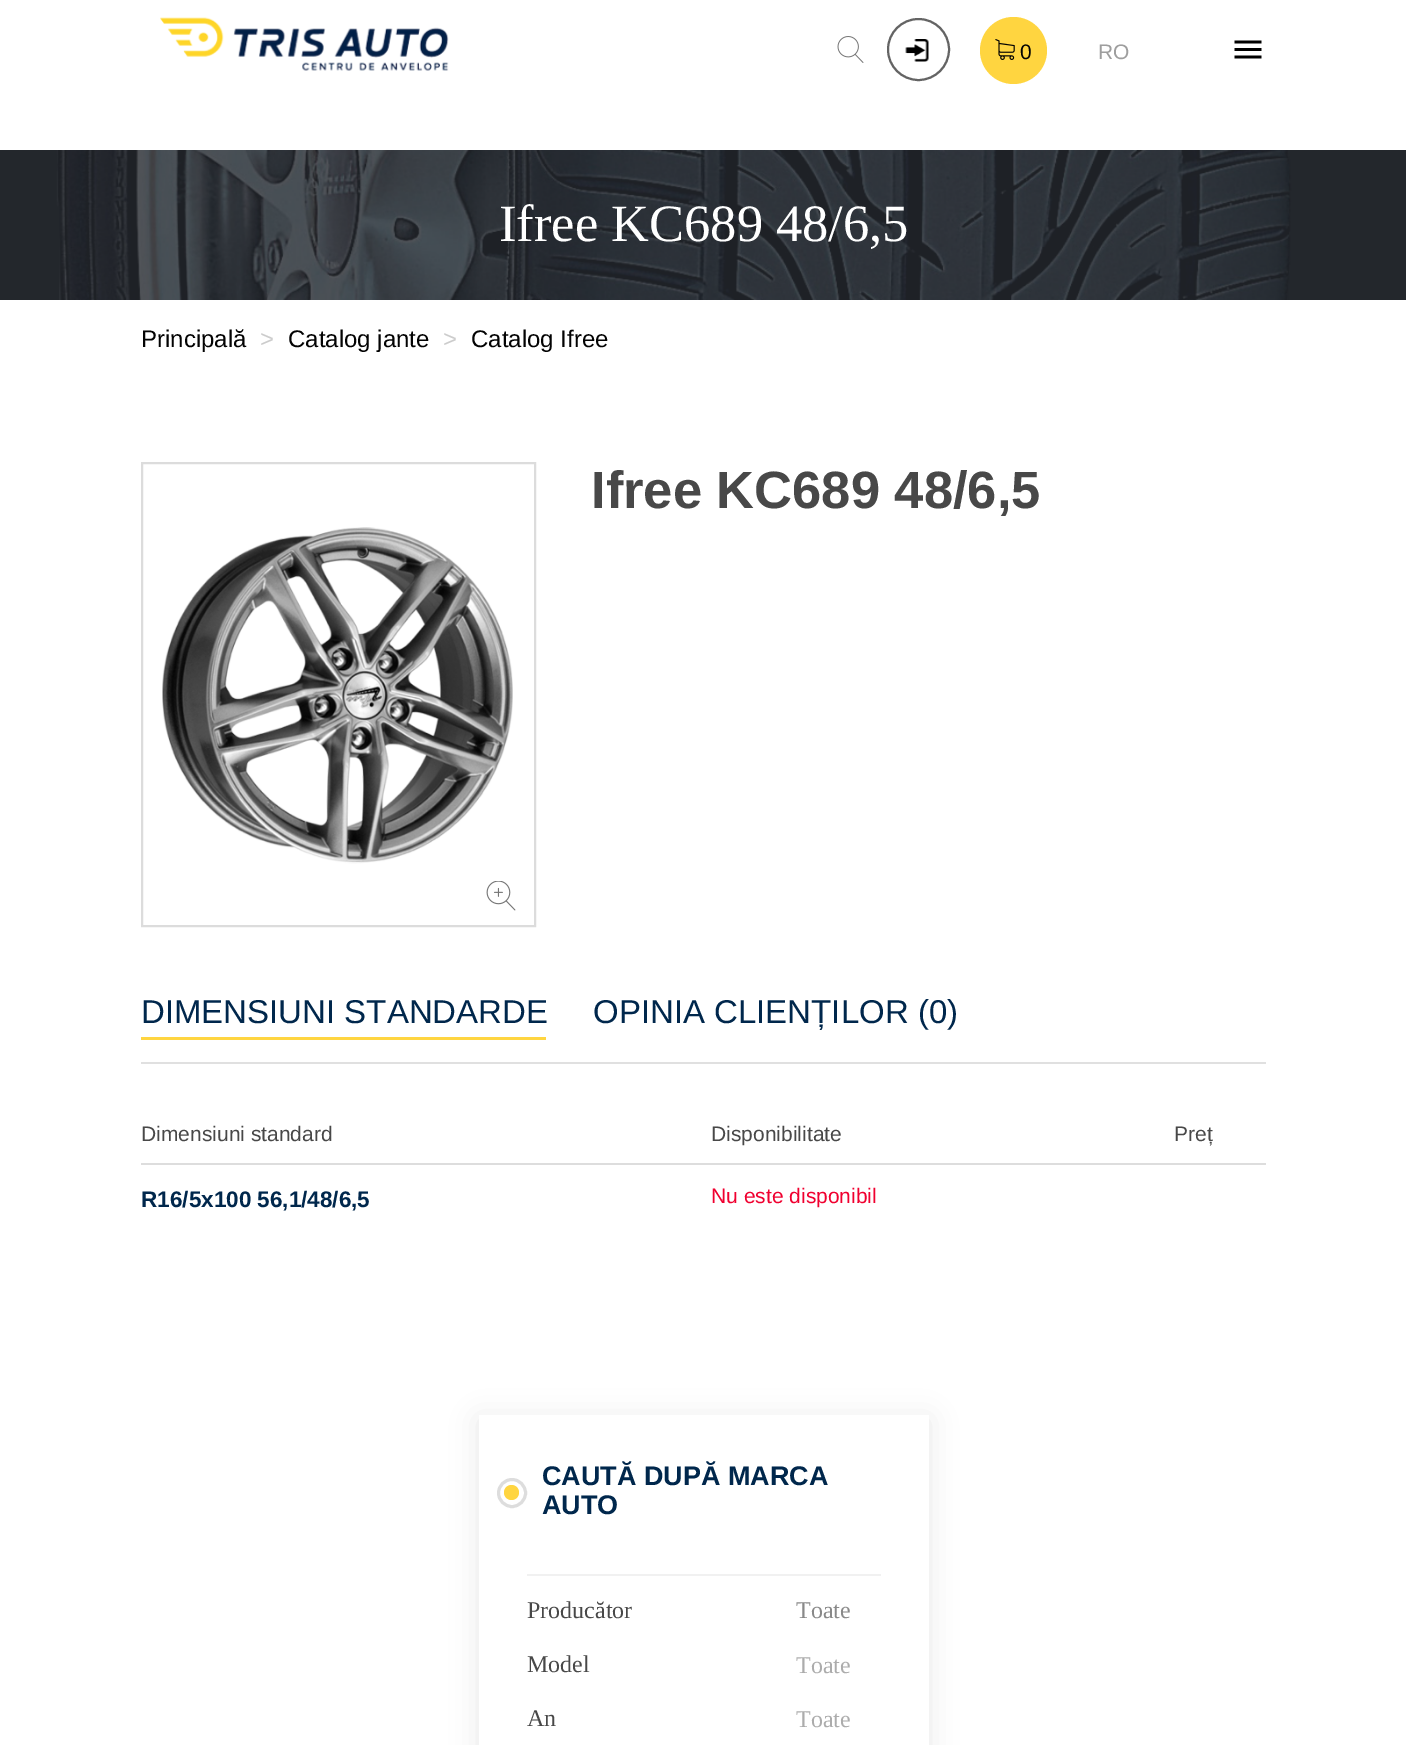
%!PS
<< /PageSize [1406 1745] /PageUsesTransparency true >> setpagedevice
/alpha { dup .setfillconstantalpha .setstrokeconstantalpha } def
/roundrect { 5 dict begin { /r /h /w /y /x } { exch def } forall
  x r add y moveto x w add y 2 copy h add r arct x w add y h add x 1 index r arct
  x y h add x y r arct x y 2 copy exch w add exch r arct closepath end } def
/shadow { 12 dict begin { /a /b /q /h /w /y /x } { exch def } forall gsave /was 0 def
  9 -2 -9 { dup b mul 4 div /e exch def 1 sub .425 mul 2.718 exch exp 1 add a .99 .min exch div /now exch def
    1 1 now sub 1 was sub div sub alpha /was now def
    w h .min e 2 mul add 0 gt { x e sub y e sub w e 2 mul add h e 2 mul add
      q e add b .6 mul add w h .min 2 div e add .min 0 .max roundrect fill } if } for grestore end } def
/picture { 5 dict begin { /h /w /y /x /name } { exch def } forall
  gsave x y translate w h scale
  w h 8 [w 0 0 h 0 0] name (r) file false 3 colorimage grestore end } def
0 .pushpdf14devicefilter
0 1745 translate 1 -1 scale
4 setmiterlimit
1 setgray
0 0 1406 1745 rectfill
(img1.rgb) 160 17 289 54 picture
(img2.rgb) 837 36 27 27 picture
(img3.rgb) 905 39 24 23 picture
0.392 setgray
2 setlinewidth
newpath 918.5 49.5 30.5 0 360 arc closepath stroke
1 0.835 0.251 setrgbcolor
newpath 1013.5 50.5 33.5 0 360 arc closepath fill
(img4.rgb) 995 39 20 21 picture
/LiberationSans-Regular [21 0 0 -21 0 0] selectfont
0.012 setgray
1020 59 moveto (0) show
0.62 setgray
1098 59 moveto (RO) show
(img5.rgb) 1234 40 28 19 picture
(img6.rgb) 0 150 1406 150 picture
/LiberationSerif-Regular [52.5 0 0 -52.5 0 0] selectfont
1 setgray
499 241 moveto (Ifree KC689 48/6,5) show
/LiberationSans-Regular [24 0 0 -24 0 0] selectfont
0.012 setgray
141 347 moveto (Principală) show
0.8 setgray
260 347 moveto (>) show
0.012 setgray
288 347 moveto (Catalog jante) show
0.8 setgray
443 347 moveto (>) show
0.012 setgray
471 347 moveto (Catalog Ifree) show
0.863 setgray
142 463 393 463 rectstroke
(img7.rgb) 162 527 351 337 picture
(img8.rgb) 486 881 30 30 picture
/LiberationSans-Bold [52.5 0 0 -52.5 0 0] selectfont
0.282 setgray
591 508 moveto (Ifree KC689 48/6,5) show
0.878 setgray
141 1062 1125 2 rectfill
/LiberationSans-Regular [33 0 0 -33 0 0] selectfont
0 0.153 0.298 setrgbcolor
141 1023 moveto (DIMENSIUNI STANDARDE) show
593 1023 moveto (OPINIA CLIENȚILOR \(0\)) show
1 0.835 0.251 setrgbcolor
141 1037 405 3 rectfill
/LiberationSans-Regular [21 0 0 -21 0 0] selectfont
0.282 setgray
141 1141 moveto (Dimensiuni standard) show
711 1141 moveto (Disponibilitate) show
1174 1141 moveto (Preț) show
0.867 setgray
141 1163 1125 2 rectfill
/LiberationSans-Bold [22.5 0 0 -22.5 0 0] selectfont
0 0.153 0.298 setrgbcolor
141 1207 moveto (R16/5x100 56,1/48/6,5) show
/LiberationSans-Regular [21 0 0 -21 0 0] selectfont
0.941 0 0.184 setrgbcolor
711 1203 moveto (Nu este disponibil) show
gsave
newpath 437 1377 moveto 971 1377 lineto 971 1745 lineto 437 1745 lineto closepath 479 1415 moveto 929 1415 lineto 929 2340 lineto 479 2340 lineto closepath eoclip newpath
0.031 0.031 0.035 setrgbcolor
479 1419 450 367 0 13.5 0.09 shadow
grestore
0.867 setgray
3 setlinewidth
newpath 512 1493 13.5 0 360 arc closepath stroke
1 0.835 0.251 setrgbcolor
newpath 511.5 1492.5 7.5 0 360 arc closepath fill
/LiberationSans-Bold [27 0 0 -27 0 0] selectfont
0 0.153 0.298 setrgbcolor
542 1485 moveto (CAUTĂ DUPĂ MARCA) show
542 1514 moveto (AUTO) show
0.945 setgray
527 1574 354 2 rectfill
/LiberationSerif-Regular [24 0 0 -24 0 0] selectfont
0.282 setgray
527 1618 moveto (Producător) show
0.537 setgray
796 1618 moveto (Toate) show
0.282 setgray
527 1672 moveto (Model) show
0.675 setgray
796 1673 moveto (Toate) show
0.282 setgray
527 1726 moveto (An) show
0.675 setgray
796 1727 moveto (Toate) show
.poppdf14devicefilter showpage
